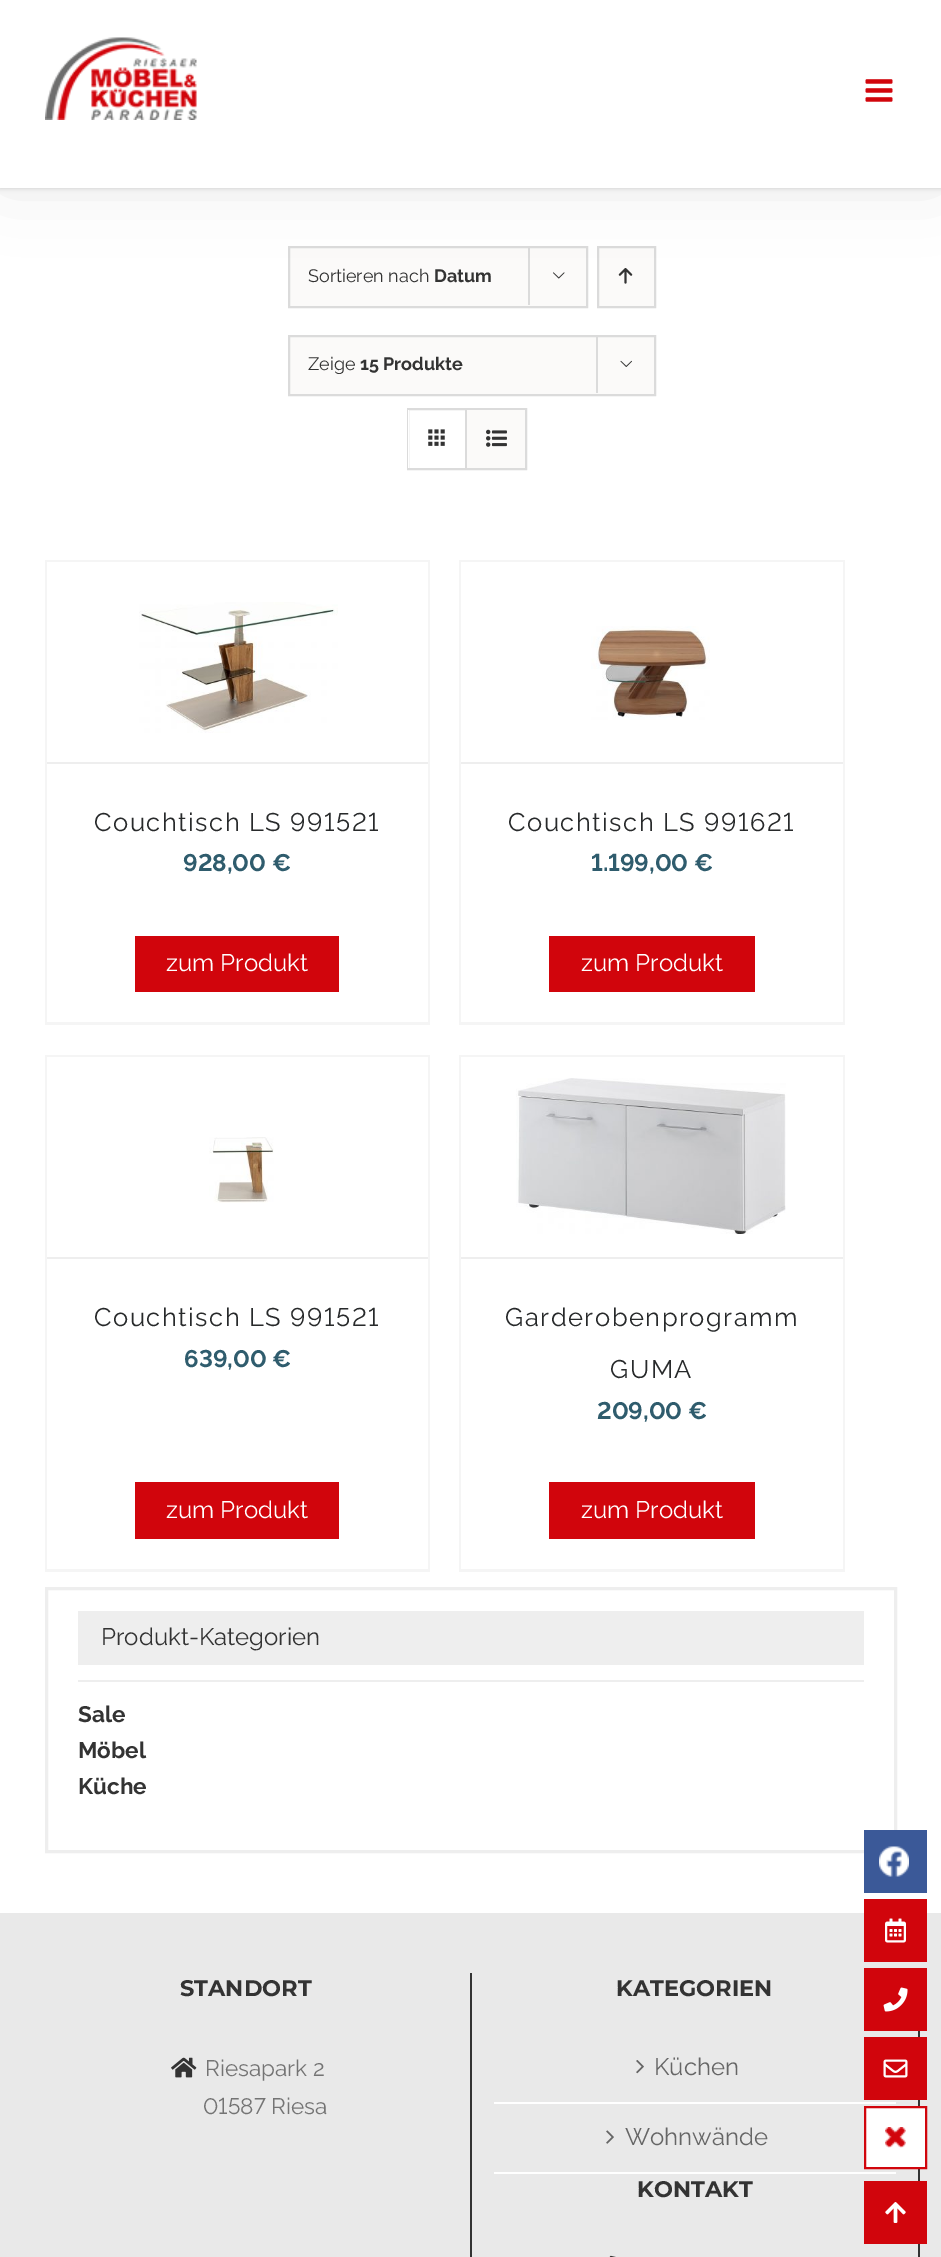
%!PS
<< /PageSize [941 2257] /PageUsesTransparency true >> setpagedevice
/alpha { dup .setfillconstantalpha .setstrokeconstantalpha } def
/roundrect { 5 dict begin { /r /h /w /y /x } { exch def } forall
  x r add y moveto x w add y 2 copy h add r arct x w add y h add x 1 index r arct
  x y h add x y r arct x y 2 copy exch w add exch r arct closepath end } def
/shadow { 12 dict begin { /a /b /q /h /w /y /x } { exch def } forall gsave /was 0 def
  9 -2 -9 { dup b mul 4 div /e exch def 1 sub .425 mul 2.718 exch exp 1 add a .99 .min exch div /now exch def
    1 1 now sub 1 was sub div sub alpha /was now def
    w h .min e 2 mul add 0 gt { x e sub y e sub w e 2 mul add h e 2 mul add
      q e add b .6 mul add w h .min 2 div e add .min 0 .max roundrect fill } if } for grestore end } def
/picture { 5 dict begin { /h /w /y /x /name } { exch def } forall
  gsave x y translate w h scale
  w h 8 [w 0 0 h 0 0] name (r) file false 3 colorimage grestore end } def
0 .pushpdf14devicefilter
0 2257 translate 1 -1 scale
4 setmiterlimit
1 setgray
0 0 941 2257 rectfill
0.984 0.98 0.976 setrgbcolor
newpath 289 247 moveto 587 247 lineto 587 307 lineto 289 307 lineto closepath gsave fill grestore
0.859 setgray
2 setlinewidth
stroke
528 246 2 59 rectfill
(img3.rgb) 553 272 12 7 picture
0.984 0.98 0.976 setrgbcolor
newpath 598 247 moveto 655 247 lineto 655 307 lineto 598 307 lineto closepath gsave fill grestore
0.859 setgray
stroke
(img4.rgb) 618 268 15 16 picture
0 setgray
3 -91 936 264 0 37.5 0.14 shadow
0 2 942 187 0 2 0.12 shadow
1 setgray
0 0 941 188 rectfill
(img1.rgb) 45 37 152 83 picture
(img2.rgb) 865 79 28 23 picture
/Raleway-Regular [18 0 0 -18 0 0] selectfont
0.2 setgray
308 282 moveto (Sortieren nach) show
/Raleway-Bold [18 0 0 -18 0 0] selectfont
434 282 moveto (Datum) show
0.984 0.98 0.976 setrgbcolor
newpath 289 336 moveto 655 336 lineto 655 395 lineto 289 395 lineto closepath gsave fill grestore
0.859 setgray
stroke
/Raleway-Regular [18 0 0 -18 0 0] selectfont
0.2 setgray
308 370 moveto (Zeige) show
/Raleway-Bold [18 0 0 -18 0 0] selectfont
360 370 moveto (15 Produkte) show
0.859 setgray
596 335 2 58 rectfill
(img5.rgb) 620 360 12 7 picture
408 409 118 60 rectstroke
1 setgray
408 410 1 58 rectfill
0.859 setgray
465 410 2 58 rectfill
(img6.rgb) 428 429 17 17 picture
0.984 0.98 0.976 setrgbcolor
467 410 58 58 rectfill
(img7.rgb) 486 429 21 18 picture
0.961 setgray
45 560 384 2 rectfill
428 560 2 465 rectfill
45 1022 384 3 rectfill
45 560 2 465 rectfill
(img8.rgb) 139 602 199 131 picture
0.933 setgray
47 762 381 2 rectfill
/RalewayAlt-Regular [25.5 0 0 -25.5 0 0] selectfont
0.157 0.165 0.169 setrgbcolor
94 831 moveto 1.5 0 (Couchtisch LS 991521) ashow
/RalewayAlt-Bold [24 0 0 -24 0 0] selectfont
0.184 0.361 0.427 setrgbcolor
183 871 moveto (928,00) show
/Raleway-Bold [24 0 0 -24 0 0] selectfont
272 871 moveto (€) show
0.82 0.02 0.047 setrgbcolor
135 936 204 56 rectfill
/Raleway-Regular [24 0 0 -24 0 0] selectfont
1 setgray
166 971 moveto (zum Produkt) show
0.961 setgray
459 560 386 2 rectfill
843 560 2 465 rectfill
459 1022 386 3 rectfill
459 560 2 465 rectfill
(img9.rgb) 591 626 119 94 picture
0.933 setgray
461 762 382 2 rectfill
/RalewayAlt-Regular [25.5 0 0 -25.5 0 0] selectfont
0.157 0.165 0.169 setrgbcolor
508 831 moveto 1.5 0 (Couchtisch LS 991621) ashow
/RalewayAlt-Bold [24 0 0 -24 0 0] selectfont
0.184 0.361 0.427 setrgbcolor
591 871 moveto (1.199,00) show
/Raleway-Bold [24 0 0 -24 0 0] selectfont
694 871 moveto (€) show
0.82 0.02 0.047 setrgbcolor
549 936 206 56 rectfill
/Raleway-Regular [24 0 0 -24 0 0] selectfont
1 setgray
581 971 moveto (zum Produkt) show
0.961 setgray
45 1055 384 2 rectfill
428 1055 2 517 rectfill
45 1569 384 3 rectfill
45 1055 2 517 rectfill
(img10.rgb) 209 1137 65 66 picture
0.933 setgray
47 1257 381 2 rectfill
/RalewayAlt-Regular [25.5 0 0 -25.5 0 0] selectfont
0.157 0.165 0.169 setrgbcolor
94 1326 moveto 1.5 0 (Couchtisch LS 991521) ashow
/RalewayAlt-Bold [24 0 0 -24 0 0] selectfont
0.184 0.361 0.427 setrgbcolor
184 1367 moveto (639,00) show
/Raleway-Bold [24 0 0 -24 0 0] selectfont
272 1367 moveto (€) show
0.82 0.02 0.047 setrgbcolor
135 1482 204 57 rectfill
/Raleway-Regular [24 0 0 -24 0 0] selectfont
1 setgray
166 1518 moveto (zum Produkt) show
0.961 setgray
459 1055 386 2 rectfill
843 1055 2 517 rectfill
459 1569 386 3 rectfill
459 1055 2 517 rectfill
(img11.rgb) 516 1078 270 156 picture
0.933 setgray
461 1257 382 2 rectfill
/Raleway-Regular [25.5 0 0 -25.5 0 0] selectfont
0.157 0.165 0.169 setrgbcolor
505 1326 moveto 1.5 0 (Garderobenprogramm) ashow
610 1378 moveto 1.5 0 (GUMA) ashow
/RalewayAlt-Bold [24 0 0 -24 0 0] selectfont
0.184 0.361 0.427 setrgbcolor
597 1419 moveto (209,00) show
/Raleway-Bold [24 0 0 -24 0 0] selectfont
688 1419 moveto (€) show
0.82 0.02 0.047 setrgbcolor
549 1482 206 57 rectfill
/Raleway-Regular [24 0 0 -24 0 0] selectfont
1 setgray
581 1518 moveto (zum Produkt) show
0.933 setgray
3 setlinewidth
46.5 1588.5 849 263 rectstroke
78 1680 786 2 rectfill
78 1611 786 54 rectfill
0.2 setgray
101 1645 moveto (Produkt-Kategorien) show
/Raleway-Bold [22.5 0 0 -22.5 0 0] selectfont
78 1722 moveto (Sale) show
78 1758 moveto (Möbel) show
78 1794 moveto (Küche) show
0.914 setgray
0 1913 941 344 rectfill
0.2 setgray
470 1973 2 284 rectfill
/Montserrat-Bold [22.5 0 0 -22.5 0 0] selectfont
180 1996 moveto (STANDORT) show
(img12.rgb) 171 2057 26 21 picture
/Raleway-Regular [22.5 0 0 -22.5 0 0] selectfont
0.455 setgray
205 2076 moveto (Riesapark 2) show
/RalewayAlt-Regular [22.5 0 0 -22.5 0 0] selectfont
203 2114 moveto (01587 Riesa) show
0.2 setgray
918 2031 2 226 rectfill
/Montserrat-Bold [22.5 0 0 -22.5 0 0] selectfont
616 1996 moveto (KATEGORIEN) show
1 setgray
494 2102 402 2 rectfill
(img13.rgb) 636 2060 8 14 picture
/Raleway-Regular [24 0 0 -24 0 0] selectfont
0.4 setgray
654 2075 moveto (Küchen) show
1 setgray
494 2172 402 2 rectfill
(img14.rgb) 606 2130 8 14 picture
0.4 setgray
625 2145 moveto (Wohnwände) show
/Montserrat-Bold [22.5 0 0 -22.5 0 0] selectfont
0.2 setgray
637 2197 moveto (KONTAKT) show
(img15.rgb) 609 2255 7 2 picture
0.231 0.349 0.596 setrgbcolor
864 1830 63 63 rectfill
(img16.rgb) 879 1846 30 31 picture
0.82 0.02 0.047 setrgbcolor
864 1899 63 63 rectfill
(img17.rgb) 885 1918 21 25 picture
864 1968 63 63 rectfill
(img18.rgb) 883 1987 25 25 picture
864 2037 63 63 rectfill
(img19.rgb) 883 2059 25 19 picture
1 setgray
866 2108 59 59 rectfill
(img20.rgb) 885 2127 21 21 picture
0.82 0.02 0.047 setrgbcolor
2 setlinewidth
865 2107 61 61 rectstroke
864 2181 63 63 rectfill
(img21.rgb) 885 2202 21 21 picture
.poppdf14devicefilter showpage
